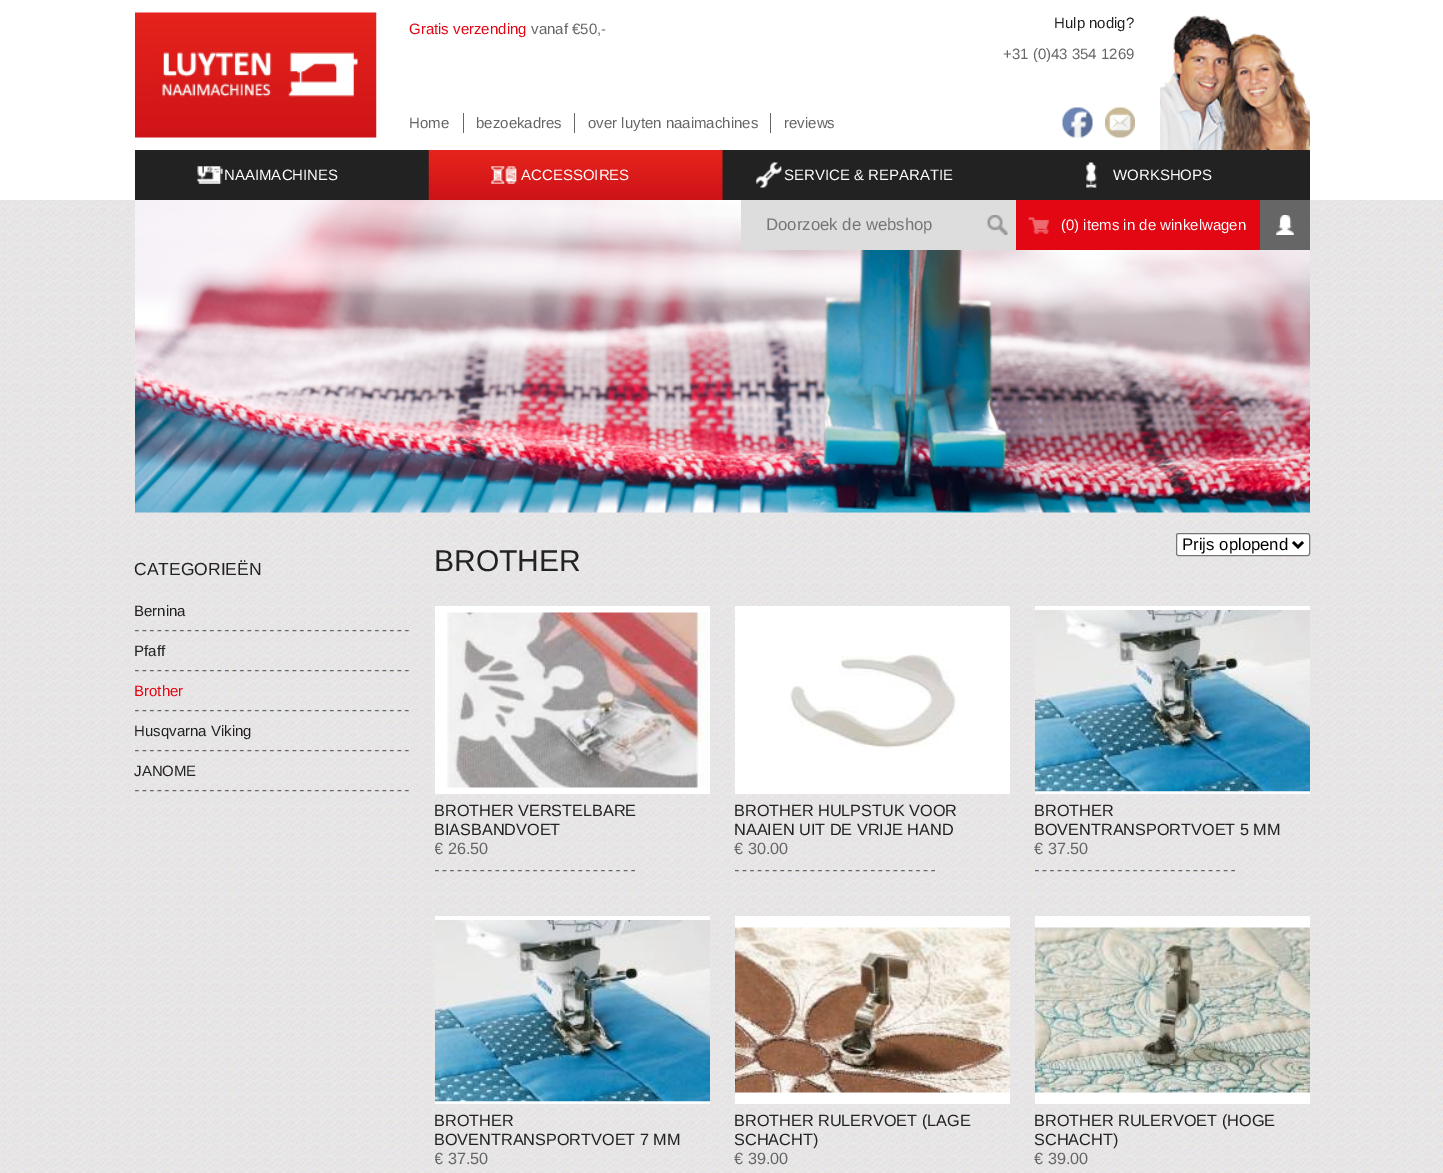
%!PS
<< /PageSize [1443 1173] >> setpagedevice
/roundrect { 5 dict begin { /r /h /w /y /x } { exch def } forall
  x r add y moveto x w add y 2 copy h add r arct x w add y h add x 1 index r arct
  x y h add x y r arct x y 2 copy exch w add exch r arct closepath end } def
/picture { 5 dict begin { /h /w /y /x /name } { exch def } forall
  gsave x y translate w h scale
  w h 8 [w 0 0 h 0 0] name (r) file false 3 colorimage grestore end } def
0 1173 translate 1 -1 scale
4 setmiterlimit
1 setgray
0 0 1443 1173 rectfill
(img1.rgb) 135 12 242 126 picture
/LiberationSans-Regular [15 0 0 -15 0 0] selectfont
0.89 0.024 0.075 setrgbcolor
409 34 moveto (Gratis verzending) show
0.4 setgray
531 34 moveto (vanaf €50,-) show
463 113 1 20 rectfill
409 128 moveto (Home) show
574 113 1 20 rectfill
476 128 moveto (bezoekadres) show
770 113 1 20 rectfill
588 128 moveto (over luyten naaimachines) show
784 128 moveto (reviews) show
0.133 setgray
1054 28 moveto (Hulp nodig?) show
0.4 setgray
1003 59 moveto (+31 \(0\)43 354 1269) show
(img2.rgb) 1062 107 31 31 picture
(img3.rgb) 1105 107 30 31 picture
(img4.rgb) 1160 15 150 135 picture
0.133 setgray
135 150 1175 50 rectfill
(img5.rgb) 197 166 26 18 picture
1 setgray
224 180 moveto (NAAIMACHINES) show
(img6.rgb) 428 150 295 50 picture
(img7.rgb) 491 166 26 18 picture
521 180 moveto (ACCESSOIRES) show
(img8.rgb) 756 162 26 26 picture
784 180 moveto (SERVICE & REPARATIE) show
(img9.rgb) 1086 162 11 26 picture
1113 180 moveto (WORKSHOPS) show
(img10.rgb) 0 200 1443 973 picture
(img11.rgb) 135 200 1175 313 picture
0.867 setgray
741 200 275 50 rectfill
/LiberationSans-Regular [16.75 0 0 -16.75 0 0] selectfont
0.459 setgray
766 230 moveto (Doorzoek de webshop) show
(img12.rgb) 987 215 21 20 picture
0.89 0.024 0.075 setrgbcolor
1016 200 244 50 rectfill
(img13.rgb) 1028 217 21 17 picture
/LiberationSans-Regular [15 0 0 -15 0 0] selectfont
1 setgray
1061 230 moveto (\(0\) items in de winkelwagen) show
0.4 setgray
1260 200 50 50 rectfill
(img14.rgb) 1276 215 18 20 picture
1 setgray
1176.5 533.5 133 22 2 roundrect gsave fill grestore
0.463 setgray
stroke
0 setgray
2.5 setlinewidth
newpath 1293 542 moveto 1298 547 lineto 1303 542 lineto stroke
/LiberationSans-Regular [16.75 0 0 -16.75 0 0] selectfont
1182 550 moveto (Prijs oplopend) show
/LiberationSans-Regular [17.5 0 0 -17.5 0 0] selectfont
0.133 setgray
134 575 moveto (CATEGORIEËN) show
(img15.rgb) 135 630 274 2 picture
/LiberationSans-Regular [15 0 0 -15 0 0] selectfont
134 616 moveto (Bernina) show
(img16.rgb) 135 670 274 2 picture
134 656 moveto (Pfaff) show
(img17.rgb) 135 710 274 2 picture
0.89 0.024 0.075 setrgbcolor
134 696 moveto (Brother) show
(img18.rgb) 135 750 274 2 picture
0.133 setgray
134 736 moveto (Husqvarna Viking) show
(img19.rgb) 135 790 274 2 picture
134 776 moveto (JANOME) show
/LiberationSans-Regular [30 0 0 -30 0 0] selectfont
434 571 moveto (BROTHER) show
1 setgray
435 606 275 188 rectfill
(img20.rgb) 447 612 263 176 picture
/LiberationSans-Regular [16.25 0 0 -16.25 0 0] selectfont
0.133 setgray
434 816 moveto (BROTHER VERSTELBARE) show
434 835 moveto (BIASBANDVOET) show
gsave
435 606 875 310 rectclip
0.4 setgray
434 854 moveto (€ 26.50) show
grestore
(img21.rgb) 435 870 200 2 picture
1 setgray
735 606 275 188 rectfill
(img22.rgb) 789 654 169 94 picture
0.133 setgray
734 816 moveto (BROTHER HULPSTUK VOOR) show
734 835 moveto (NAAIEN UIT DE VRIJE HAND) show
0.4 setgray
734 854 moveto (€ 30.00) show
(img23.rgb) 735 870 200 2 picture
1 setgray
1035 606 275 188 rectfill
(img24.rgb) 1035 610 275 182 picture
0.133 setgray
1034 816 moveto (BROTHER) show
1034 835 moveto (BOVENTRANSPORTVOET 5 MM) show
0.4 setgray
1034 854 moveto (€ 37.50) show
(img25.rgb) 1035 870 200 2 picture
1 setgray
435 916 275 188 rectfill
(img26.rgb) 435 920 275 182 picture
0.133 setgray
434 1126 moveto (BROTHER) show
434 1145 moveto (BOVENTRANSPORTVOET 7 MM) show
gsave
435 916 875 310 rectclip
0.4 setgray
434 1164 moveto (€ 37.50) show
grestore
1 setgray
735 916 275 188 rectfill
(img27.rgb) 735 927 275 166 picture
0.133 setgray
734 1126 moveto (BROTHER RULERVOET \(LAGE) show
734 1145 moveto (SCHACHT\)) show
0.4 setgray
734 1164 moveto (€ 39.00) show
1 setgray
1035 916 275 188 rectfill
(img28.rgb) 1035 927 275 166 picture
0.133 setgray
1034 1126 moveto (BROTHER RULERVOET \(HOGE) show
1034 1145 moveto (SCHACHT\)) show
0.4 setgray
1034 1164 moveto (€ 39.00) show
showpage
